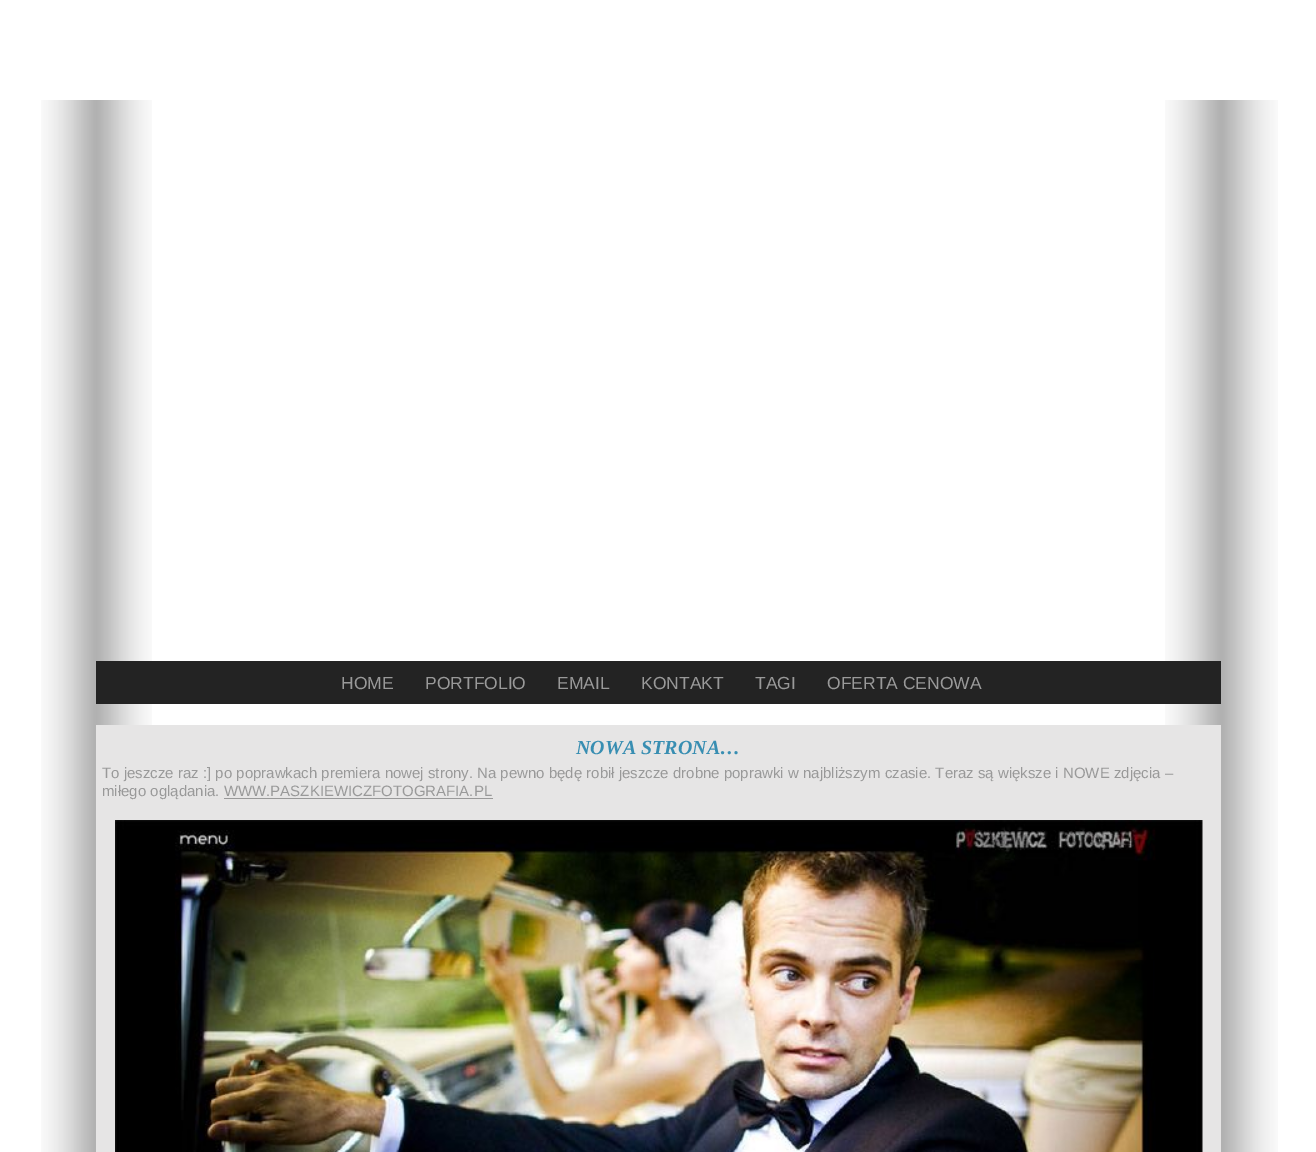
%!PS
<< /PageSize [1316 1152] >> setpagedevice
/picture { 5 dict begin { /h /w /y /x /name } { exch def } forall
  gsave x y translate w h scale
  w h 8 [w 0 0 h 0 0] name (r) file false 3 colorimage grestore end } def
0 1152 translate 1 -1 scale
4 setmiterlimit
1 setgray
0 0 1316 1152 rectfill
(img1.rgb) 41 100 111 1052 picture
(img2.rgb) 1165 100 113 1052 picture
0.137 setgray
96 661 1125 43 rectfill
/LiberationSans-Regular [17.5 0 0 -17.5 0 0] selectfont
0.6 setgray
341 689 moveto (HOME) show
425 689 moveto (PORTFOLIO) show
557 689 moveto (EMAIL) show
641 689 moveto (KONTAKT) show
755 689 moveto (TAGI) show
827 689 moveto (OFERTA CENOWA) show
0.902 0.898 0.898 setrgbcolor
96 725 1125 427 rectfill
/LiberationSerif-BoldItalic [20 0 0 -20 0 0] selectfont
0.22 0.557 0.698 setrgbcolor
576 754 moveto (NOWA STRONA…) show
/LiberationSans-Regular [15 0 0 -15 0 0] selectfont
0.6 setgray
102 778 moveto (To jeszcze raz :] po poprawkach premiera nowej strony. Na pewno będę robił jeszcze drobne poprawki w najbliższym czasie. Teraz są większe i NOWE zdjęcia –) show
102 796 moveto (miłego oglądania. WWW.PASZKIEWICZFOTOGRAFIA.PL) show
224 798 269 1 rectfill
(img3.rgb) 115 820 1088 332 picture
showpage
